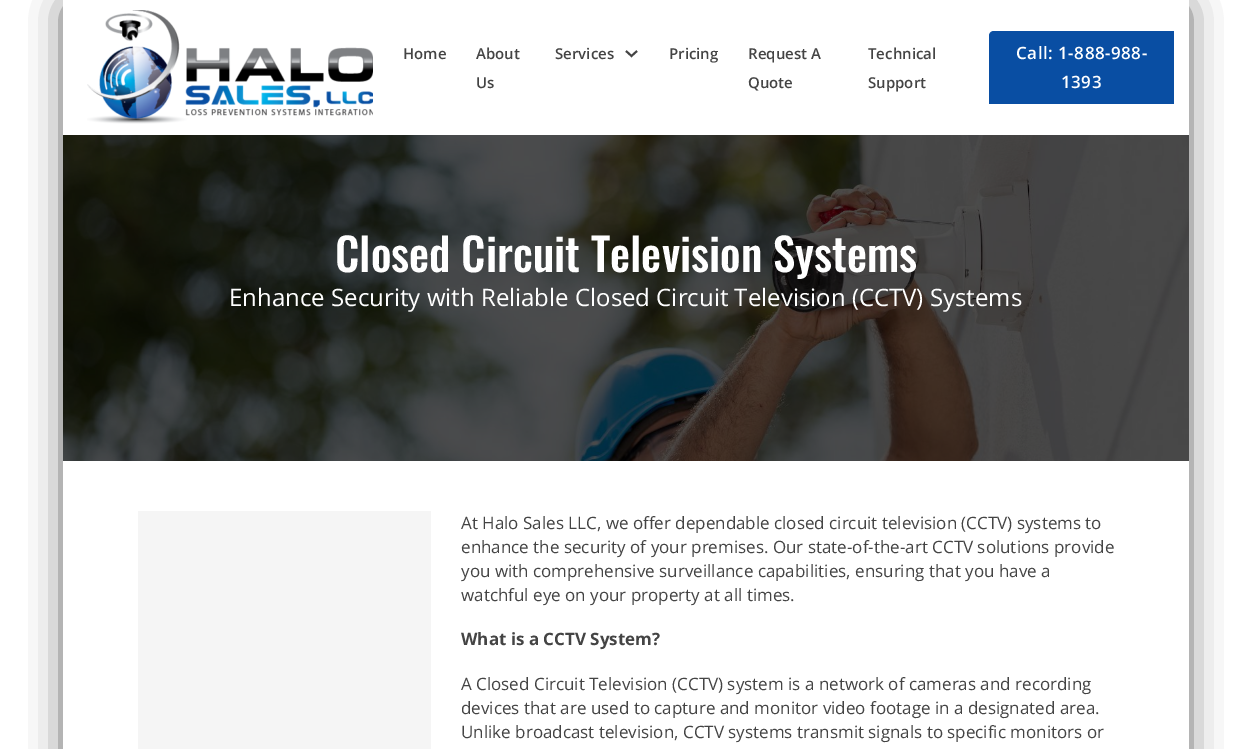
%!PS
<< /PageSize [1252 749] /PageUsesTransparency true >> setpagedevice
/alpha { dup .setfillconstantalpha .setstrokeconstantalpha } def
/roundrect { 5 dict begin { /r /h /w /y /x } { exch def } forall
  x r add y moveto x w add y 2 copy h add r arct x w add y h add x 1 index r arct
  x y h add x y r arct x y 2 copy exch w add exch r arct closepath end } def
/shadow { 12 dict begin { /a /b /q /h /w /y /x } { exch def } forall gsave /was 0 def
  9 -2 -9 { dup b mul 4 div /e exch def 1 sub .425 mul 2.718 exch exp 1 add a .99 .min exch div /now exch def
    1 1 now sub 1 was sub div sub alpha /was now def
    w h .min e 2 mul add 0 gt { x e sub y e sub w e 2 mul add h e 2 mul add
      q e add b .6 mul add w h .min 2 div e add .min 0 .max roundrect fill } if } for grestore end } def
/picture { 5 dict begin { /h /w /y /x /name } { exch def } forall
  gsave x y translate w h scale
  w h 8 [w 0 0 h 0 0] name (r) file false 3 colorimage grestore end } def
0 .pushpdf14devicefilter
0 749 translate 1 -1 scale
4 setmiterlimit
1 setgray
0 0 1252 749 rectfill
gsave
newpath 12 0 moveto 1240 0 lineto 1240 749 lineto 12 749 lineto closepath 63 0 moveto 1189 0 lineto 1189 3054 lineto 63 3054 lineto closepath eoclip newpath
0 setgray
73 10 1106 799 0 20 1 shadow
grestore
(img1.rgb) 87 10 286 114 picture
/OpenSans-SemiBold [15 0 0 -15 0 0] selectfont
0.267 setgray
403 59 moveto (Home) show
476 59 moveto (About) show
476 88 moveto (Us) show
555 59 moveto (Services) show
1.9 setlinewidth
newpath 626 51 moveto 631.5 56 lineto 637 51 lineto stroke
669 59 moveto (Pricing) show
748 59 moveto (Request A) show
748 88 moveto (Quote) show
868 59 moveto (Technical) show
868 88 moveto (Support) show
0.035 0.306 0.639 setrgbcolor
newpath 994 31 moveto 1174 31 lineto 1174 104 lineto 989 104 lineto 989 36 lineto 989 33 991 31 994 31 curveto closepath fill
/OpenSans-SemiBold [17 0 0 -17 0 0] selectfont
1 setgray
1016 59 moveto 0.5 0 (Call: 1-888-988-) ashow
1061 88 moveto 0.5 0 (1393) ashow
(img2.rgb) 63 135 1126 326 picture
/Oswald-Medium [45 0 0 -45 0 0] selectfont
335 272 moveto (Closed Circuit Television Systems) show
/OpenSans-Regular [24 0 0 -24 0 0] selectfont
229 306 moveto (Enhance Security with Reliable Closed Circuit Television \(CCTV\) Systems) show
0.961 setgray
138 511 293 238 rectfill
/OpenSans-Regular [17 0 0 -17 0 0] selectfont
0.267 setgray
461 529 moveto (At Halo Sales LLC, we offer dependable closed circuit television \(CCTV\) systems to) show
461 553 moveto (enhance the security of your premises. Our state-of-the-art CCTV solutions provide) show
461 577 moveto (you with comprehensive surveillance capabilities, ensuring that you have a) show
461 601 moveto (watchful eye on your property at all times.) show
/OpenSans-Bold [17 0 0 -17 0 0] selectfont
461 645 moveto (What is a CCTV System?) show
/OpenSans-Regular [17 0 0 -17 0 0] selectfont
461 690 moveto (A Closed Circuit Television \(CCTV\) system is a network of cameras and recording) show
461 714 moveto (devices that are used to capture and monitor video footage in a designated area.) show
461 738 moveto (Unlike broadcast television, CCTV systems transmit signals to specific monitors or) show
.poppdf14devicefilter showpage
